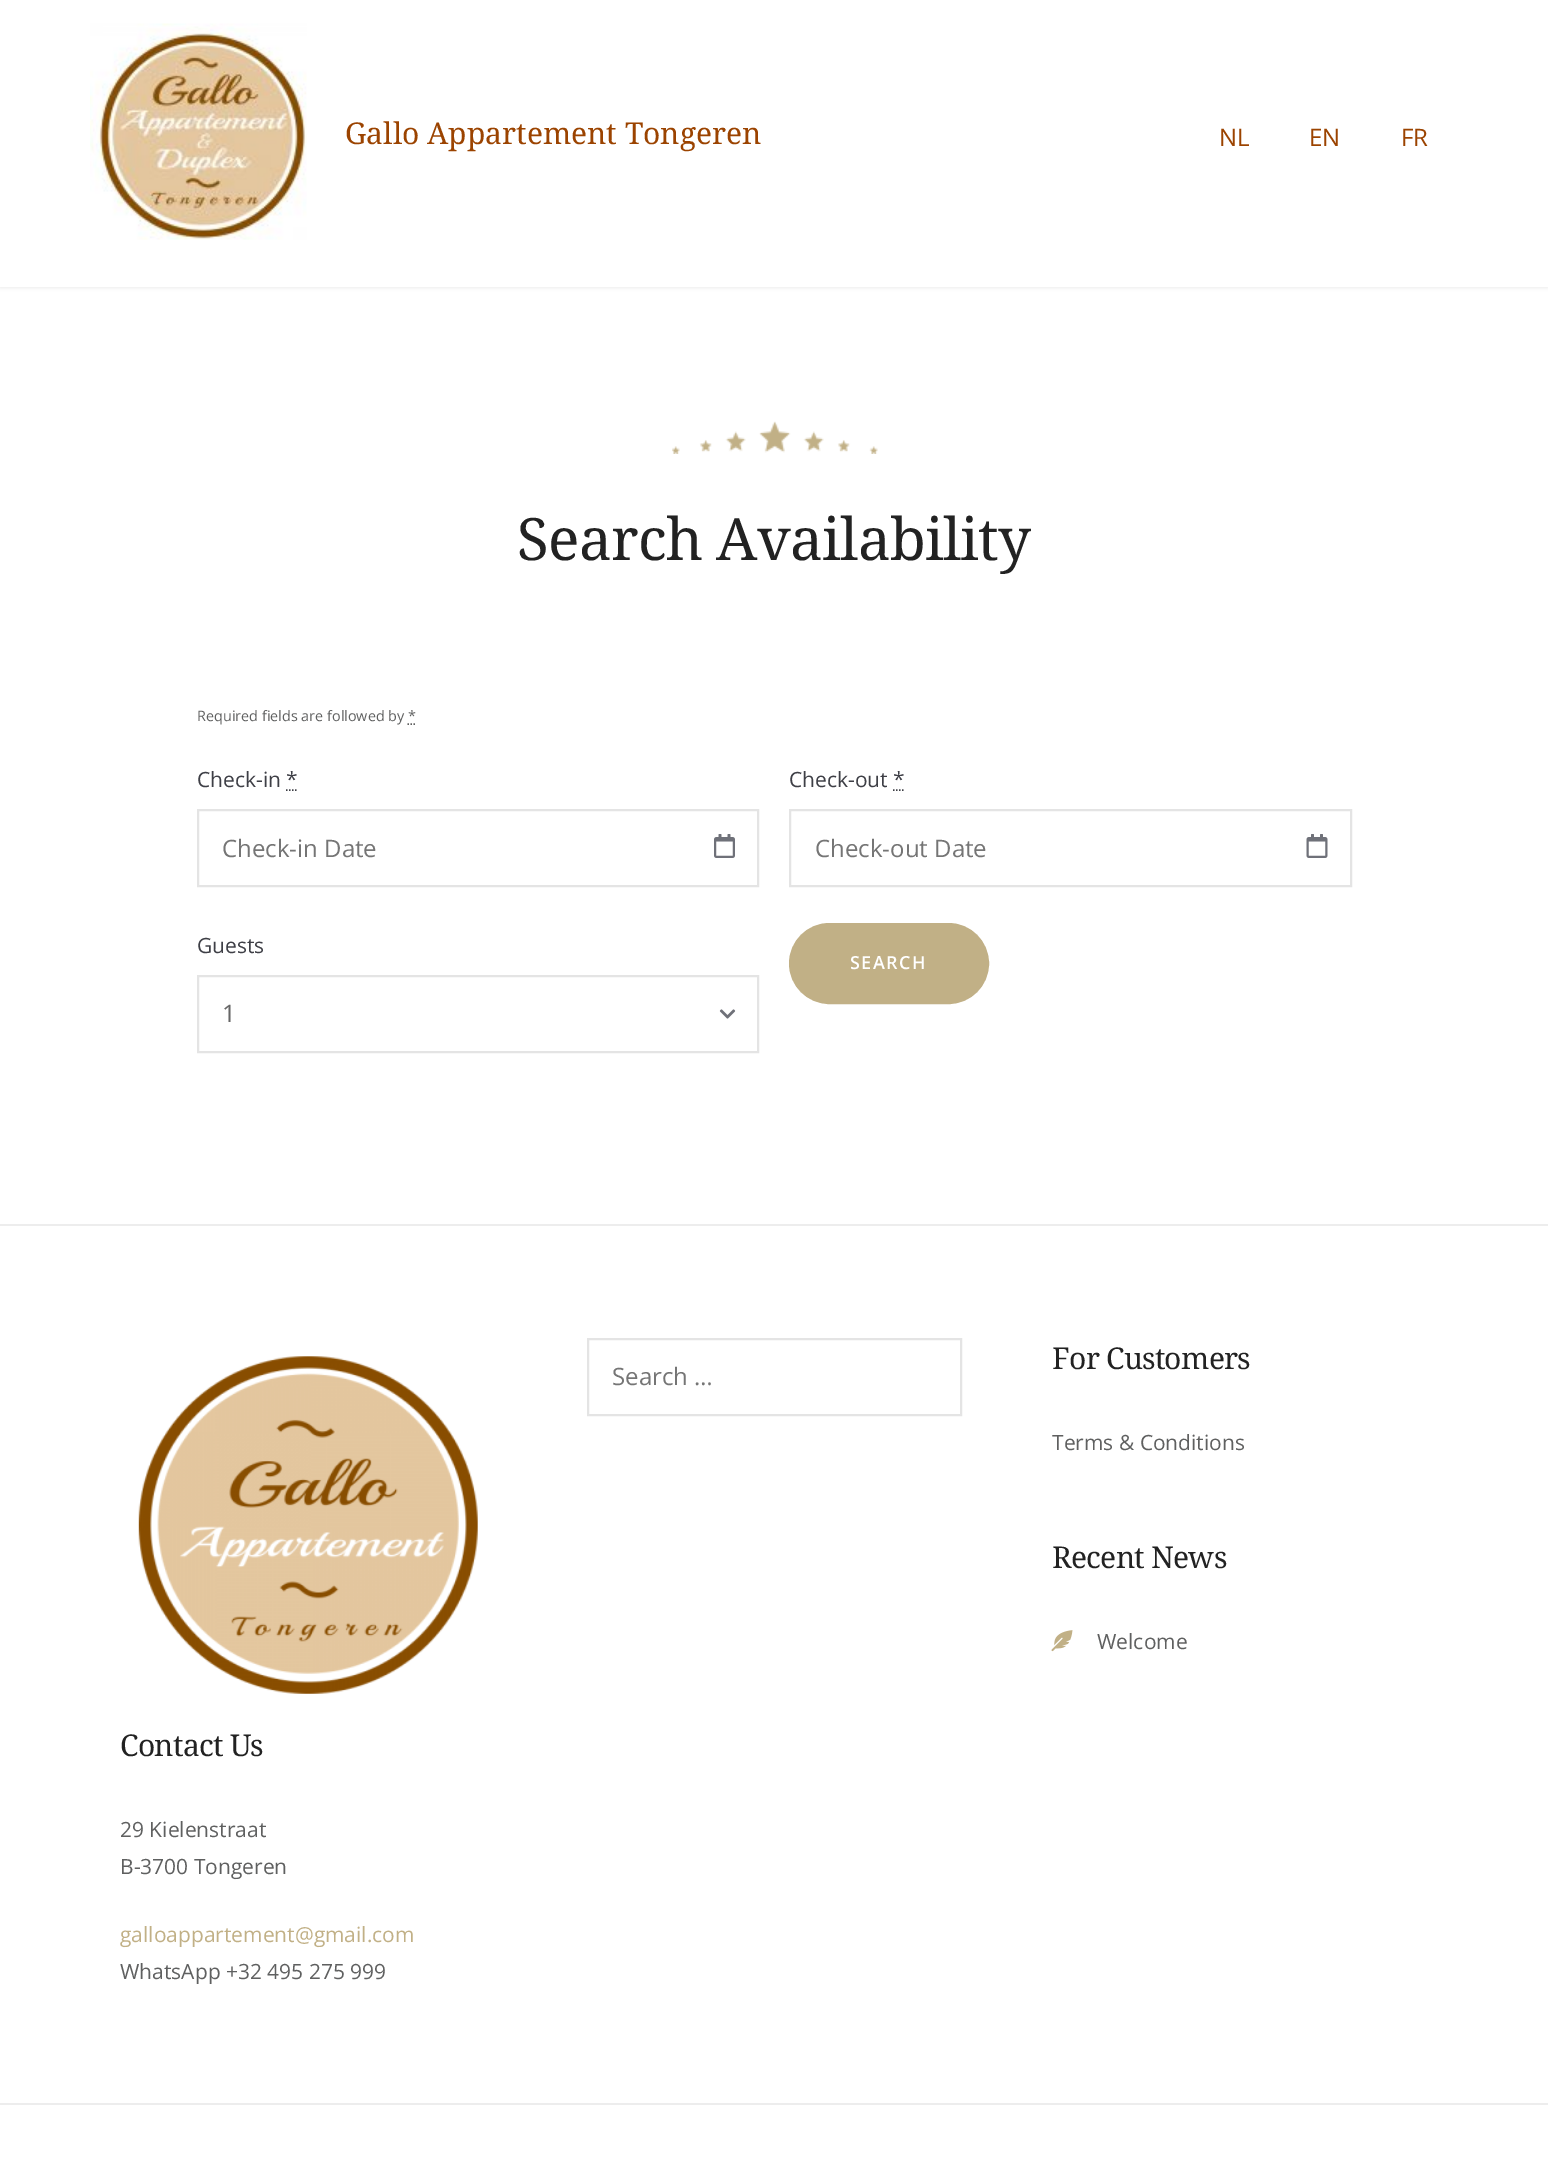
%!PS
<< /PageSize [1548 2160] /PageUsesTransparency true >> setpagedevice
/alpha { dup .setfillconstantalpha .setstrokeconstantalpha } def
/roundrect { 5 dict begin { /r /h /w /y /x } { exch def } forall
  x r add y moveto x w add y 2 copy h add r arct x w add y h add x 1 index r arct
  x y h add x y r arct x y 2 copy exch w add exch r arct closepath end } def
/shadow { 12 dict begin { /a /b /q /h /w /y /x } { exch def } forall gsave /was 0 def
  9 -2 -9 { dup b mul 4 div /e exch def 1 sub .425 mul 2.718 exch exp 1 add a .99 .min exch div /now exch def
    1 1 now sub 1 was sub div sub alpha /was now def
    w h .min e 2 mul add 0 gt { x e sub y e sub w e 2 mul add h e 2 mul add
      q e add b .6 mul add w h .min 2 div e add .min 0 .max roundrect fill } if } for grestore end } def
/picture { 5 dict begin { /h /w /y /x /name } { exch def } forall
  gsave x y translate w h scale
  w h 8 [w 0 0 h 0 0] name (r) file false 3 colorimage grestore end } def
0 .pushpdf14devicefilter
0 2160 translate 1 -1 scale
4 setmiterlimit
1 setgray
0 0 1548 2160 rectfill
0.314 setgray
0 -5 1548 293 0 1.5 0.1 shadow
1 setgray
0 0 1548 287 rectfill
(img1.rgb) 90 23 217 217 picture
/NotoSerif-Regular [30 0 0 -30 0 0] selectfont
0.608 0.263 0 setrgbcolor
345 144 moveto (Gallo Appartement Tongeren) show
/OpenSans-Regular [24 0 0 -24 0 0] selectfont
1219 146 moveto (NL) show
1309 146 moveto (EN) show
1401 146 moveto (FR) show
(img2.rgb) 672 421 206 33 picture
/NotoSerif-Regular [58.5 0 0 -58.5 0 0] selectfont
0.133 setgray
517 560 moveto -0.75 0 (Search Availability) ashow
/OpenSans-Regular [14.4 0 0 -14.4 0 0] selectfont
0.373 0.376 0.376 setrgbcolor
197 721 moveto (Required fields are followed by *) show
1.5 setlinewidth
newpath 407.5 724 moveto 409 724 lineto 410.5 724 moveto 412 724 lineto 413.5 724 moveto 415 724 lineto stroke
/OpenSans-Regular [21 0 0 -21 0 0] selectfont
0.243 0.247 0.275 setrgbcolor
197 787 moveto (Check-in *) show
[1.5 1.5] 0 setdash
newpath 286 790 moveto 297.5 790 lineto stroke
(img3.rgb) 714 834 21 24 picture
0.894 setgray
2 setlinewidth
[] 0 setdash
198 810 560 76 rectstroke
/OpenSans-Regular [24 0 0 -24 0 0] selectfont
0.459 setgray
222 857 moveto (Check-in Date) show
/OpenSans-Regular [21 0 0 -21 0 0] selectfont
0.243 0.247 0.275 setrgbcolor
789 787 moveto (Check-out *) show
1.5 setlinewidth
[1.5 1.5] 0 setdash
newpath 893 790 moveto 905 790 lineto stroke
(img4.rgb) 1306 834 22 24 picture
0.894 setgray
2 setlinewidth
[] 0 setdash
790 810 561 76 rectstroke
/OpenSans-Regular [24 0 0 -24 0 0] selectfont
0.459 setgray
815 857 moveto (Check-out Date) show
/OpenSans-Regular [21 0 0 -21 0 0] selectfont
0.243 0.247 0.275 setrgbcolor
197 953 moveto (Guests) show
(img5.rgb) 719 1009 17 10 picture
0.894 setgray
198 976 560 76 rectstroke
/OpenSans-Regular [24 0 0 -24 0 0] selectfont
0.4 setgray
222 1022 moveto (1) show
0.757 0.69 0.525 setrgbcolor
790 924 198 79 39.5 roundrect gsave fill grestore
stroke
/OpenSans-SemiBold [18 0 0 -18 0 0] selectfont
1 setgray
850 969 moveto 1.5 0 (SEARCH) ashow
0.929 setgray
0 1224 1548 2 rectfill
(img6.rgb) 138 1356 340 338 picture
0.894 setgray
588 1339 373 76 rectstroke
/OpenSans-Regular [24 0 0 -24 0 0] selectfont
0.459 setgray
612 1385 moveto (Search …) show
/NotoSerif-Regular [30 0 0 -30 0 0] selectfont
0.133 setgray
1052 1369 moveto -0.75 0 (For Customers) ashow
/OpenSans-Regular [21 0 0 -21 0 0] selectfont
0.373 0.376 0.376 setrgbcolor
1052 1450 moveto (Terms & Conditions) show
/NotoSerif-Regular [30 0 0 -30 0 0] selectfont
0.133 setgray
1052 1568 moveto -0.75 0 (Recent News) ashow
(img7.rgb) 1051 1630 22 22 picture
/OpenSans-Regular [21 0 0 -21 0 0] selectfont
0.373 0.376 0.376 setrgbcolor
1097 1649 moveto (Welcome) show
/NotoSerif-Regular [30 0 0 -30 0 0] selectfont
0.133 setgray
120 1756 moveto -0.75 0 (Contact Us) ashow
/OpenSans-Regular [21 0 0 -21 0 0] selectfont
0.373 0.376 0.376 setrgbcolor
120 1837 moveto (29 Kielenstraat) show
120 1874 moveto (B-3700 Tongeren) show
0.757 0.69 0.525 setrgbcolor
120 1942 moveto (galloappartement@gmail.com) show
0.373 0.376 0.376 setrgbcolor
120 1979 moveto (WhatsApp +32 495 275 999) show
0.929 setgray
0 2103 1548 2 rectfill
.poppdf14devicefilter showpage
